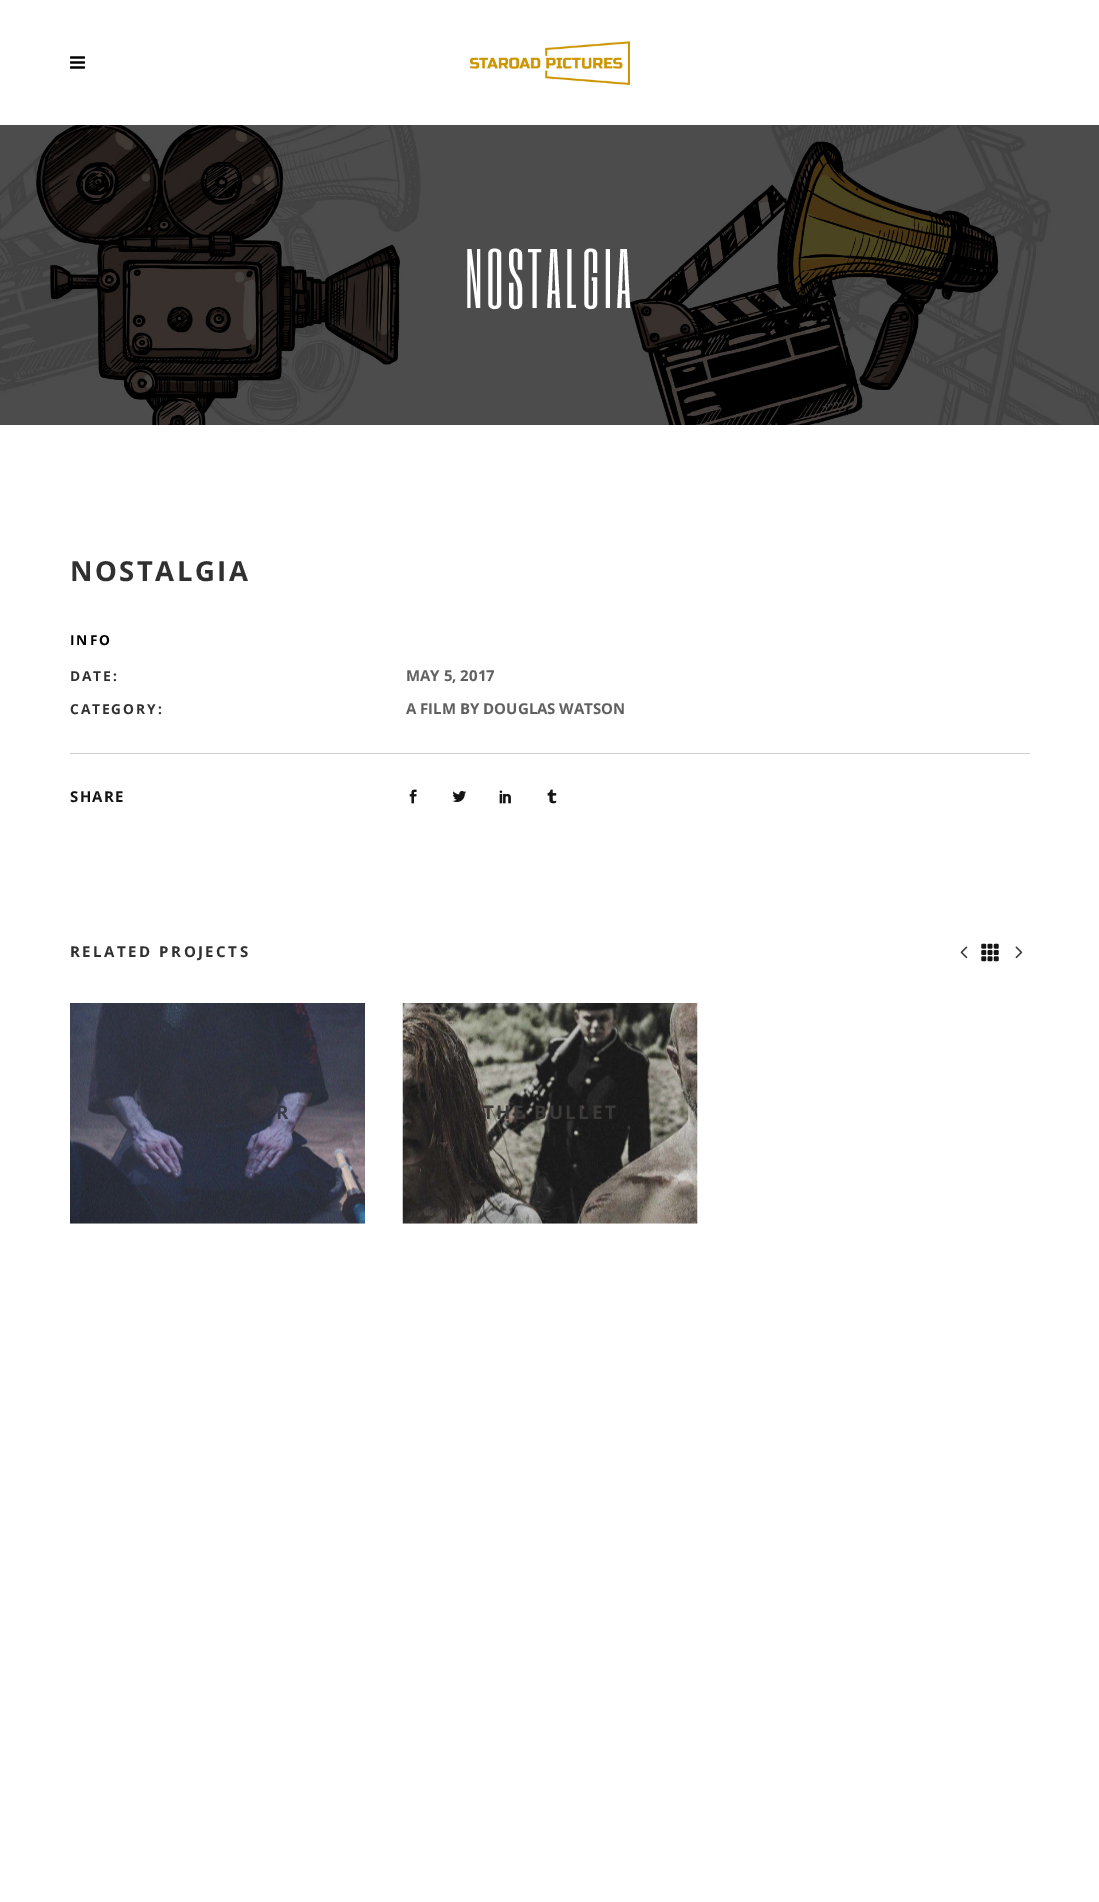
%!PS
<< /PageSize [1099 1902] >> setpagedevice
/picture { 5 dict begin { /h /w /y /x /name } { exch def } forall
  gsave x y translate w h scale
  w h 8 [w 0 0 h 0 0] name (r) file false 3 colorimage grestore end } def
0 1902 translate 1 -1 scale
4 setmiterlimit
1 setgray
0 0 1099 1902 rectfill
(img1.rgb) 70 56 15 13 picture
(img2.rgb) 470 41 160 44 picture
(img3.rgb) 0 125 1099 300 picture
/SixCaps-Regular [70 0 0 -70 0 0] selectfont
465 308 moveto 3.75 0 (NOSTALGIA) ashow
/OpenSans-Bold [27.5 0 0 -27.5 0 0] selectfont
0.188 setgray
70 581 moveto 2.5 0 (NOSTALGIA) ashow
/OpenSans-Bold [13.75 0 0 -13.75 0 0] selectfont
0 setgray
70 645 moveto 1.9 0 (INFO) ashow
0.188 setgray
70 681 moveto 1.9 0 (DATE:) ashow
/OpenSans-Bold [15 0 0 -15 0 0] selectfont
0.376 setgray
406 681 moveto (MAY 5, 2017) show
/OpenSans-Bold [13.75 0 0 -13.75 0 0] selectfont
0.188 setgray
70 714 moveto 1.9 0 (CATEGORY:) ashow
/OpenSans-Bold [15 0 0 -15 0 0] selectfont
0.376 setgray
406 714 moveto (A FILM BY DOUGLAS WATSON) show
0.804 setgray
70 753 960 1 rectfill
0.082 setgray
70 802 moveto 1.25 0 (SHARE) ashow
(img4.rgb) 409 789 8 15 picture
(img5.rgb) 452 790 15 13 picture
(img6.rgb) 499 790 12 14 picture
(img7.rgb) 547 789 10 15 picture
0.188 setgray
70 957 moveto 2.5 0 (RELATED PROJECTS) ashow
(img8.rgb) 960 946 8 13 picture
(img9.rgb) 981 943 18 19 picture
(img10.rgb) 1015 946 8 13 picture
(img11.rgb) 70 1003 295 221 picture
/OpenSans-Bold [18.75 0 0 -18.75 0 0] selectfont
0.22 0.227 0.282 setrgbcolor
276 1119 moveto 2.5 0 (R) ashow
(img12.rgb) 402 1003 296 221 picture
0.235 0.227 0.22 setrgbcolor
483 1119 moveto 2.5 0 (THE BULLET) ashow
showpage
